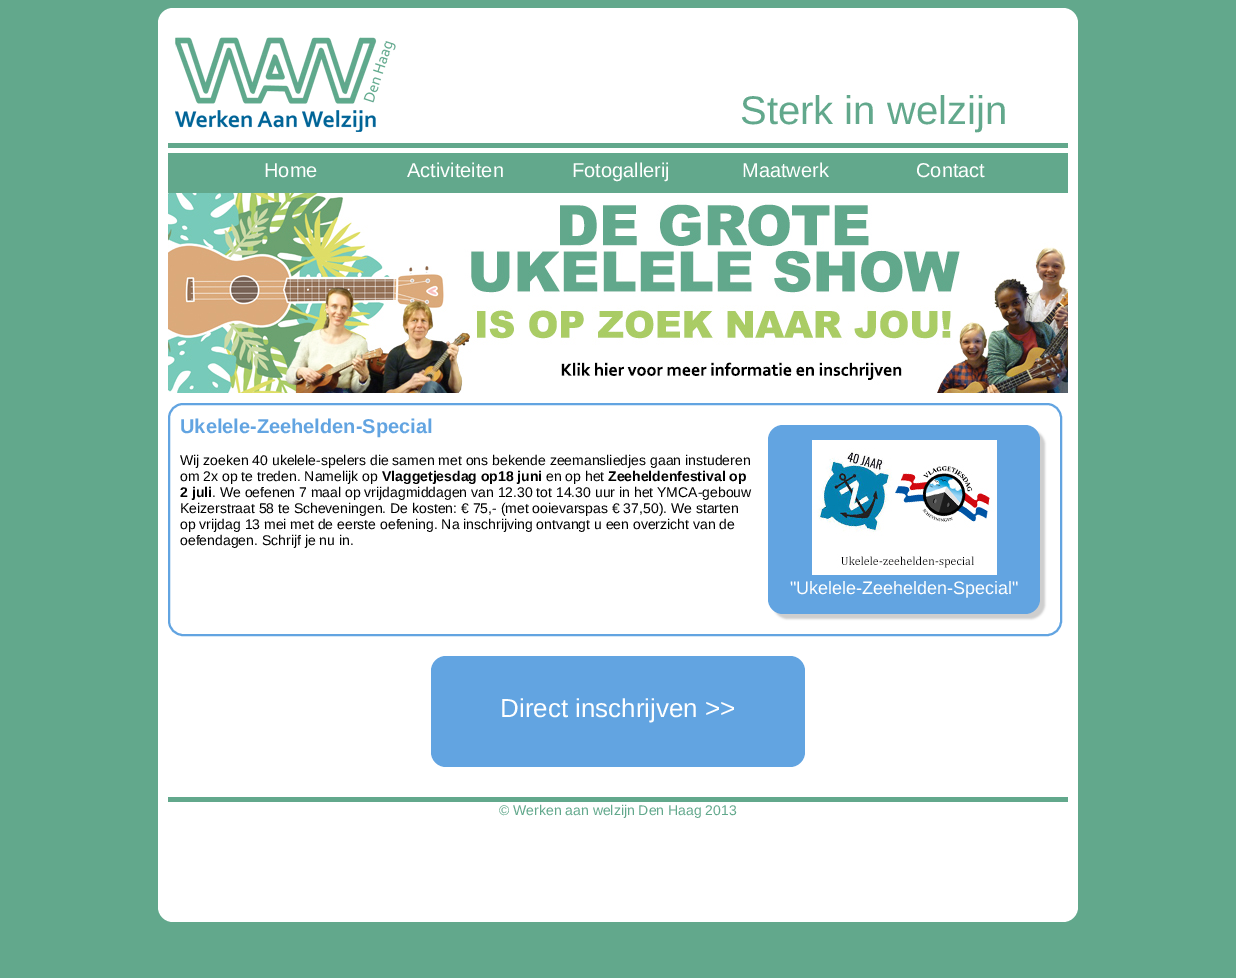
%!PS
<< /PageSize [1236 978] /PageUsesTransparency true >> setpagedevice
/alpha { dup .setfillconstantalpha .setstrokeconstantalpha } def
/roundrect { 5 dict begin { /r /h /w /y /x } { exch def } forall
  x r add y moveto x w add y 2 copy h add r arct x w add y h add x 1 index r arct
  x y h add x y r arct x y 2 copy exch w add exch r arct closepath end } def
/shadow { 12 dict begin { /a /b /q /h /w /y /x } { exch def } forall gsave /was 0 def
  9 -2 -9 { dup b mul 4 div /e exch def 1 sub .425 mul 2.718 exch exp 1 add a .99 .min exch div /now exch def
    1 1 now sub 1 was sub div sub alpha /was now def
    w h .min e 2 mul add 0 gt { x e sub y e sub w e 2 mul add h e 2 mul add
      q e add b .6 mul add w h .min 2 div e add .min 0 .max roundrect fill } if } for grestore end } def
/picture { 5 dict begin { /h /w /y /x /name } { exch def } forall
  gsave x y translate w h scale
  w h 8 [w 0 0 h 0 0] name (r) file false 3 colorimage grestore end } def
0 .pushpdf14devicefilter
0 978 translate 1 -1 scale
4 setmiterlimit
0.384 0.659 0.549 setrgbcolor
0 0 1236 978 rectfill
1 setgray
158 8 920 914 15 roundrect fill
(img1.rgb) 175 37 221 95 picture
/LiberationSans-Regular [40 0 0 -40 0 0] selectfont
0.384 0.659 0.549 setrgbcolor
740 124 moveto (Sterk in welzijn) show
168 143 900 5 rectfill
168 153 900 40 rectfill
/LiberationSans-Regular [20 0 0 -20 0 0] selectfont
1 setgray
264 177 moveto (Home) show
407 177 moveto (Activiteiten) show
572 177 moveto (Fotogallerij) show
742 177 moveto (Maatwerk) show
916 177 moveto (Contact) show
(img2.rgb) 168 193 900 200 picture
0.384 0.643 0.882 setrgbcolor
2 setlinewidth
169 404 892 231 14 roundrect stroke
/LiberationSans-Bold [20 0 0 -20 0 0] selectfont
180 433 moveto (Ukelele-Zeehelden-Special) show
/LiberationSans-Regular [14 0 0 -14 0 0] selectfont
0 setgray
180 465 moveto (Wij zoeken 40 ukelele-spelers die samen met ons bekende zeemansliedjes gaan instuderen) show
180 481 moveto (om 2x op te treden. Namelijk op) show
/LiberationSans-Bold [14 0 0 -14 0 0] selectfont
382 481 moveto (Vlaggetjesdag op18 juni) show
/LiberationSans-Regular [14 0 0 -14 0 0] selectfont
546 481 moveto (en op het) show
/LiberationSans-Bold [14 0 0 -14 0 0] selectfont
608 481 moveto (Zeeheldenfestival op) show
180 497 moveto (2 juli) show
/LiberationSans-Regular [14 0 0 -14 0 0] selectfont
212 497 moveto (. We oefenen 7 maal op vrijdagmiddagen van 12.30 tot 14.30 uur in het YMCA-gebouw) show
180 513 moveto (Keizerstraat 58 te Scheveningen. De kosten: € 75,- \(met ooievarspas € 37,50\). We starten) show
180 529 moveto (op vrijdag 13 mei met de eerste oefening. Na inschrijving ontvangt u een overzicht van de) show
180 545 moveto (oefendagen. Schrijf je nu in.) show
0.8 setgray
773 430 272 189 15 1 1 shadow
0.384 0.643 0.882 setrgbcolor
768 425 272 189 15 roundrect fill
(img3.rgb) 812 440 185 135 picture
/LiberationSans-Regular [18 0 0 -18 0 0] selectfont
1 setgray
790 594 moveto ("Ukelele-Zeehelden-Special") show
0.384 0.643 0.882 setrgbcolor
431 656 374 111 15 roundrect fill
/LiberationSans-Regular [26 0 0 -26 0 0] selectfont
1 setgray
500 717 moveto (Direct inschrijven >>) show
0.384 0.659 0.549 setrgbcolor
168 797 900 5 rectfill
/LiberationSans-Regular [14 0 0 -14 0 0] selectfont
499 815 moveto (© Werken aan welzijn Den Haag 2013) show
.poppdf14devicefilter showpage
